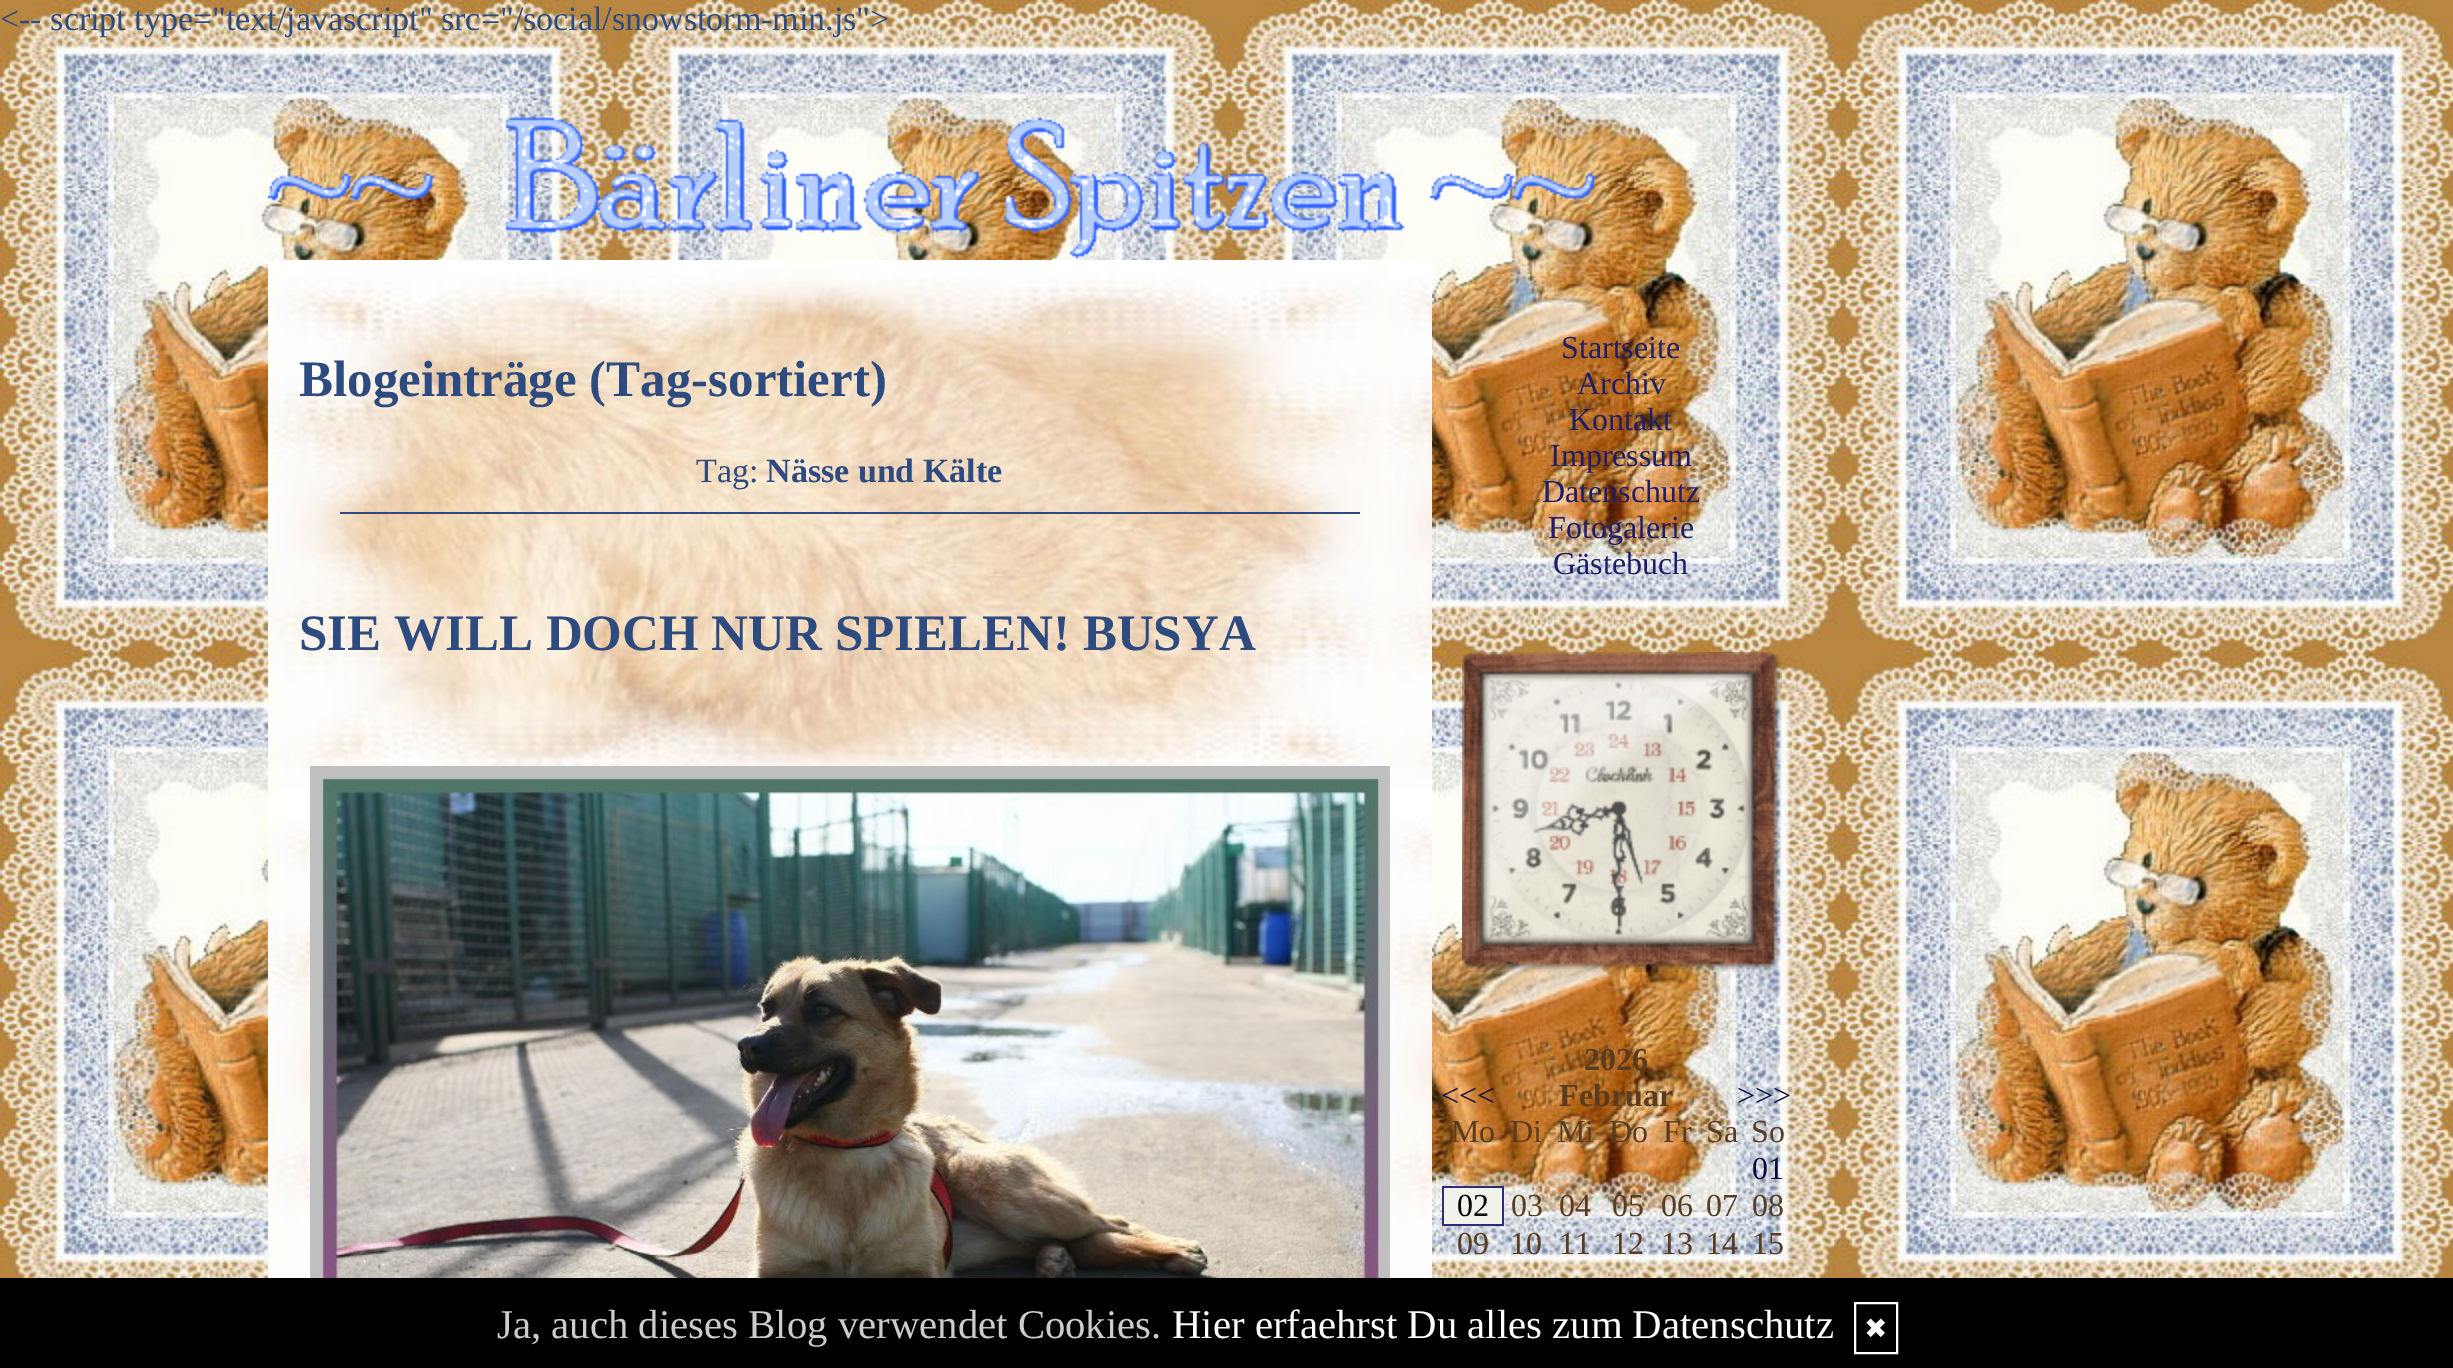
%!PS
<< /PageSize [2453 1368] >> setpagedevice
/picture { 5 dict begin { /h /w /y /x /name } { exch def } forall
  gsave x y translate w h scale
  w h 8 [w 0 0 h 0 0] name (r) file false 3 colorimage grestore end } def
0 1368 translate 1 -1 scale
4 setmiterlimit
1 setgray
0 0 2453 1368 rectfill
(img1.rgb) 0 0 2453 1278 picture
/LiberationSerif-Regular [34 0 0 -34 0 0] selectfont
0.18 0.294 0.502 setrgbcolor
0 30 moveto (<-- script type="text/javascript" src="/social/snowstorm-min.js">) show
(img2.rgb) 268 117 1329 142 picture
(img3.rgb) 268 260 1164 1018 picture
/LiberationSerif-Bold [51 0 0 -51 0 0] selectfont
299 396 moveto (Blogeinträge \(Tag-sortiert\)) show
/LiberationSerif-Regular [34 0 0 -34 0 0] selectfont
696 482 moveto (Tag:) show
/LiberationSerif-Bold [34 0 0 -34 0 0] selectfont
766 482 moveto (Nässe und Kälte) show
340 512 1020 2 rectfill
/LiberationSerif-Bold [51 0 0 -51 0 0] selectfont
299 650 moveto (SIE WILL DOCH NUR SPIELEN! BUSYA) show
(img4.rgb) 310 766 1080 512 picture
/LiberationSerif-Regular [32 0 0 -32 0 0] selectfont
0.114 0.114 0.412 setrgbcolor
1561 358 moveto (Startseite) show
1577 394 moveto (Archiv) show
1569 430 moveto (Kontakt) show
1550 466 moveto (Impressum) show
1542 502 moveto (Datenschutz) show
1548 538 moveto (Fotogalerie) show
1553 574 moveto (Gästebuch) show
(img5.rgb) 1462 652 320 320 picture
/LiberationSerif-Bold [32 0 0 -32 0 0] selectfont
0.349 0.235 0.125 setrgbcolor
1584 1070 moveto (2026) show
/LiberationSerif-Regular [32 0 0 -32 0 0] selectfont
0.039 0.039 0.239 setrgbcolor
1441 1106 moveto (<<<) show
/LiberationSerif-Bold [32 0 0 -32 0 0] selectfont
0.349 0.235 0.125 setrgbcolor
1559 1106 moveto (Februar) show
/LiberationSerif-Regular [32 0 0 -32 0 0] selectfont
0.039 0.039 0.239 setrgbcolor
1737 1106 moveto (>>>) show
0.349 0.235 0.125 setrgbcolor
1451 1142 moveto (Mo) show
1510 1142 moveto (Di) show
1557 1142 moveto (Mi) show
1609 1142 moveto (Do) show
1663 1142 moveto (Fr) show
1706 1142 moveto (Sa) show
1751 1142 moveto (So) show
0.039 0.039 0.239 setrgbcolor
1752 1179 moveto (01) show
0.945 0.949 0.914 setrgbcolor
1444 1188 58 36 rectfill
0.173 0.173 0.478 setrgbcolor
1442 1186 62 2 rectfill
1502 1186 2 40 rectfill
1442 1224 62 2 rectfill
1442 1186 2 40 rectfill
0 setgray
1457 1216 moveto (02) show
0.349 0.235 0.125 setrgbcolor
1511 1216 moveto (03) show
1559 1216 moveto (04) show
1612 1216 moveto (05) show
1661 1216 moveto (06) show
1706 1216 moveto (07) show
1752 1216 moveto (08) show
1457 1254 moveto (09) show
1510 1254 moveto (10) show
1559 1254 moveto (11) show
1612 1254 moveto (12) show
1661 1254 moveto (13) show
1706 1254 moveto (14) show
1752 1254 moveto (15) show
0 setgray
0 1280 2453 88 rectfill
2 setlinewidth
-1 1279 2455 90 rectstroke
/LiberationSerif-Regular [40.75 0 0 -40.75 0 0] selectfont
0.8 setgray
497 1338 moveto (Ja, auch dieses Blog verwendet Cookies.) show
1 setgray
1172 1338 moveto (Hier erfaehrst Du alles zum Datenschutz) show
1855 1303 42 50 rectstroke
/DejaVuSans-Regular [28 0 0 -28 0 0] selectfont
1864 1338 moveto (✖) show
showpage
